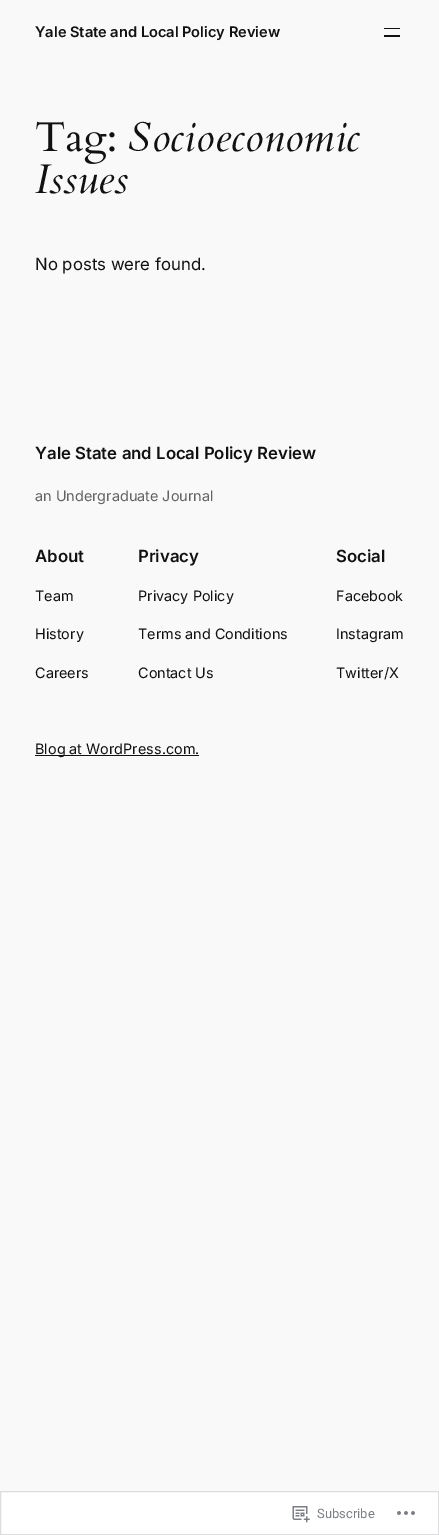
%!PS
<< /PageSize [439 1535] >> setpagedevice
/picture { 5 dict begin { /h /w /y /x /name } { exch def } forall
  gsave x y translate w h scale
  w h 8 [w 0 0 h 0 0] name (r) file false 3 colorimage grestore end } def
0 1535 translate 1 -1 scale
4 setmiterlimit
0.976 setgray
0 0 439 1535 rectfill
/Inter-SemiBold [14.6 0 0 -14.6 0 0] selectfont
0.067 setgray
35 37 moveto (Yale State and Local Policy Review) show
384 28 16 1 rectfill
384 35 16 2 rectfill
(img1.rgb) 36 121 79 43 picture
/Cardo-Italic [41.5 0 0 -41.5 0 0] selectfont
128 151 moveto (Socioeconomic) show
35 193 moveto (Issues) show
/Inter-Regular [16.75 0 0 -16.75 0 0] selectfont
35 270 moveto (No posts were found.) show
/Inter-SemiBold [16.75 0 0 -16.75 0 0] selectfont
35 459 moveto (Yale State and Local Policy Review) show
/Inter-Regular [14.4 0 0 -14.4 0 0] selectfont
0.388 setgray
35 501 moveto (an Undergraduate Journal) show
/Inter-SemiBold [16.75 0 0 -16.75 0 0] selectfont
0.067 setgray
35 562 moveto (About) show
/Inter-Regular [14.4 0 0 -14.4 0 0] selectfont
35 601 moveto (Team) show
35 639 moveto (History) show
35 678 moveto (Careers) show
/Inter-SemiBold [16.75 0 0 -16.75 0 0] selectfont
138 562 moveto (Privacy) show
/Inter-Regular [14.4 0 0 -14.4 0 0] selectfont
138 601 moveto (Privacy Policy) show
138 639 moveto (Terms and Conditions) show
138 678 moveto (Contact Us) show
/Inter-SemiBold [16.75 0 0 -16.75 0 0] selectfont
336 562 moveto (Social) show
/Inter-Regular [14.4 0 0 -14.4 0 0] selectfont
336 601 moveto (Facebook) show
336 639 moveto (Instagram) show
336 678 moveto (Twitter/X) show
35 755 164 1 rectfill
35 754 moveto (Blog at WordPress.com.) show
1 setgray
newpath 0.5 1491.5 moveto 438.5 1491.5 lineto 438.5 1534.5 lineto 0.5 1534.5 lineto closepath gsave fill grestore
0.867 0.867 0.875 setrgbcolor
stroke
(img2.rgb) 292 1506 18 17 picture
/Roboto-Regular [13 0 0 -13 0 0] selectfont
0.482 0.498 0.518 setrgbcolor
317 1518 moveto (Subscribe) show
(img3.rgb) 397 1511 18 4 picture
showpage
